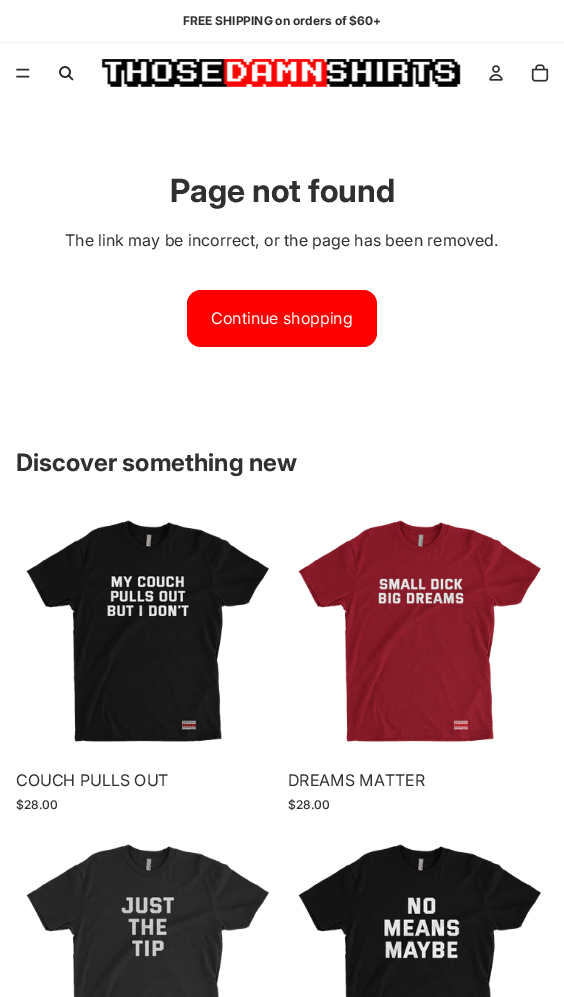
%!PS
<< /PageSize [564 997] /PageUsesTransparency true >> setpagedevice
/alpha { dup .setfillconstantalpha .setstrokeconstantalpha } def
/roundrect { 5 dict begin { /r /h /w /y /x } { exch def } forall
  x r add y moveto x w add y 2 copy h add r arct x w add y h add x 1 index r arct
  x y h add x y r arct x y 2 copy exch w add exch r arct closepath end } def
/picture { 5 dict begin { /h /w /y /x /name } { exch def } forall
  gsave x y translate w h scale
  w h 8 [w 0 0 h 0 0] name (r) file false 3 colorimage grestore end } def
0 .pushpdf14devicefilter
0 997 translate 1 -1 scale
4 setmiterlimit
1 setgray
0 0 564 997 rectfill
0.941 setgray
0 42 564 1 rectfill
/Inter-Bold [12 0 0 -12 0 0] selectfont
0.188 setgray
183 25 moveto (FREE SHIPPING on orders of $60+) show
1.5 setlinewidth
1 setlinecap
newpath 17 69.5 moveto 28.5 69.5 lineto 17 76.5 moveto 28.5 76.5 lineto stroke
1.7 setlinewidth
0 setlinecap
newpath 65 72 5 0 360 arc closepath stroke
0.81 alpha
0 setgray
1 setlinecap
1 setlinejoin
newpath 69 76 moveto 72.5 79.5 lineto stroke
1 alpha
(img1.rgb) 101 59 360 28 picture
(img2.rgb) 489 65 14 16 picture
(img3.rgb) 531 64 18 18 picture
/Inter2-Bold [32 0 0 -32 0 0] selectfont
0.188 setgray
170 202 moveto (Page not found) show
/Inter-Regular [16 0 0 -16 0 0] selectfont
65 246 moveto (The link may be incorrect, or the page has been removed.) show
1 0 0 setrgbcolor
187 290 190 57 14 roundrect fill
1 setgray
211 324 moveto (Continue shopping) show
/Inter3-Bold [24 0 0 -24 0 0] selectfont
0.188 setgray
16 471 moveto (Discover something new) show
(img4.rgb) 26 520 243 222 picture
/Inter-Regular [16 0 0 -16 0 0] selectfont
16 786 moveto (COUCH PULLS OUT) show
/Inter-Medium [12 0 0 -12 0 0] selectfont
16 809 moveto ($28.00) show
(img5.rgb) 298 520 243 222 picture
/Inter-Regular [16 0 0 -16 0 0] selectfont
288 786 moveto (DREAMS MATTER) show
/Inter-Medium [12 0 0 -12 0 0] selectfont
288 809 moveto ($28.00) show
(img6.rgb) 26 844 243 153 picture
(img7.rgb) 298 844 243 153 picture
.poppdf14devicefilter showpage
